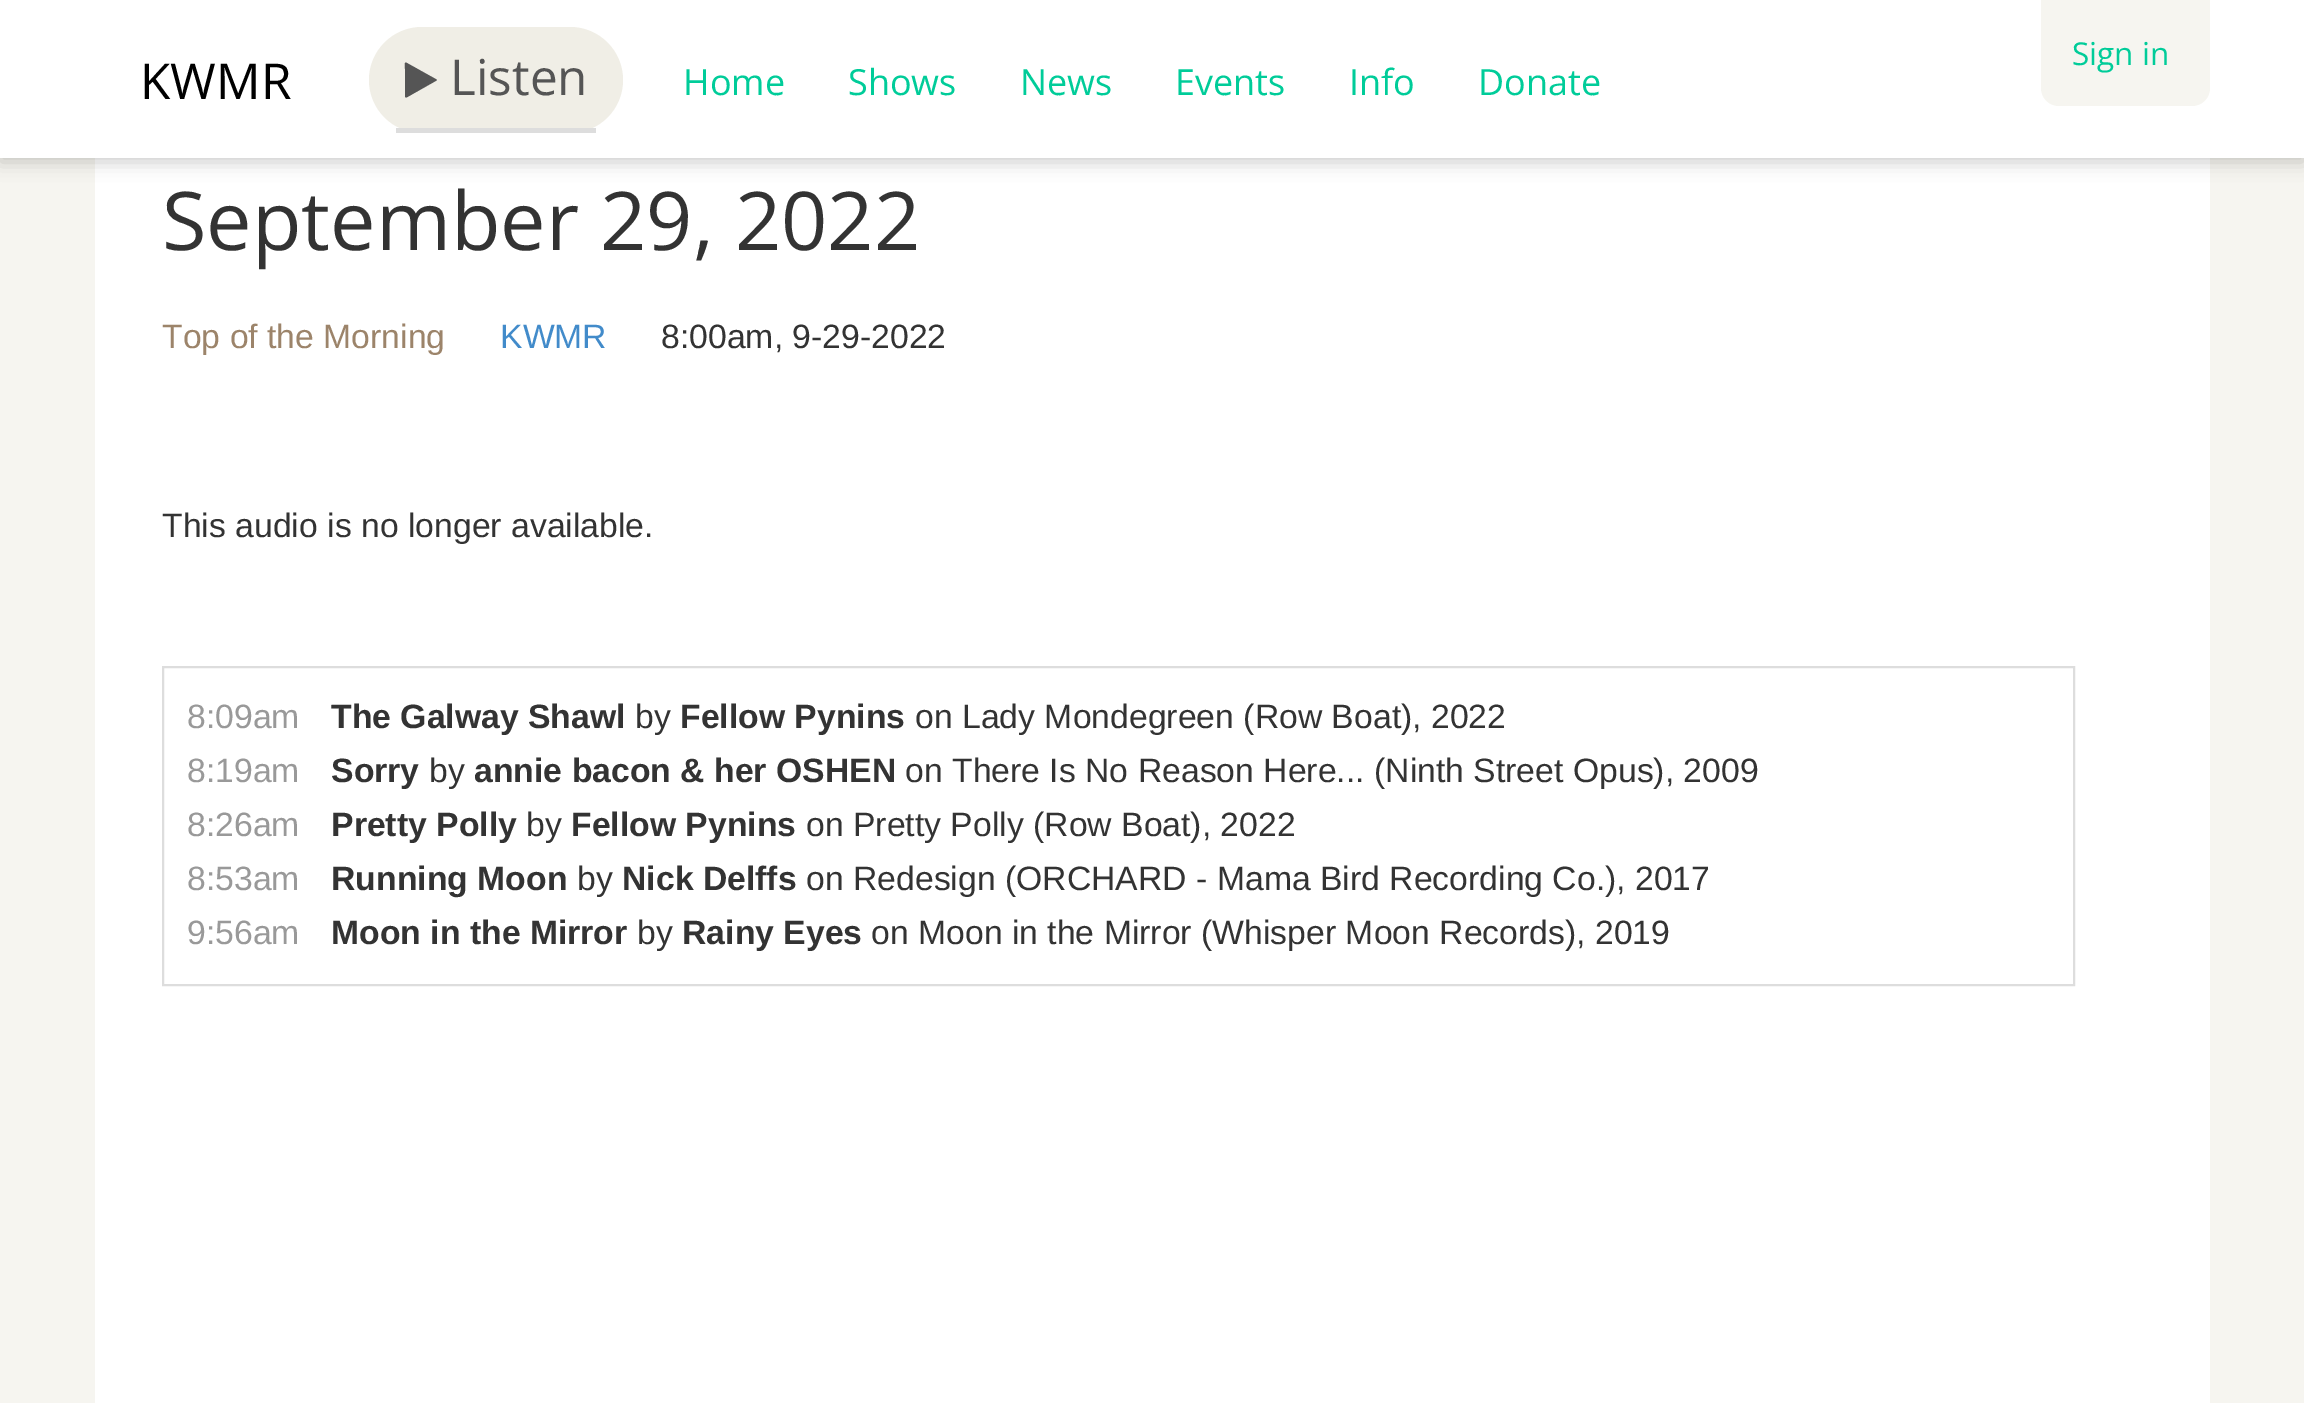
%!PS
<< /PageSize [2304 1403] /PageUsesTransparency true >> setpagedevice
/alpha { dup .setfillconstantalpha .setstrokeconstantalpha } def
/roundrect { 5 dict begin { /r /h /w /y /x } { exch def } forall
  x r add y moveto x w add y 2 copy h add r arct x w add y h add x 1 index r arct
  x y h add x y r arct x y 2 copy exch w add exch r arct closepath end } def
/shadow { 12 dict begin { /a /b /q /h /w /y /x } { exch def } forall gsave /was 0 def
  9 -2 -9 { dup b mul 4 div /e exch def 1 sub .425 mul 2.718 exch exp 1 add a .99 .min exch div /now exch def
    1 1 now sub 1 was sub div sub alpha /was now def
    w h .min e 2 mul add 0 gt { x e sub y e sub w e 2 mul add h e 2 mul add
      q e add b .6 mul add w h .min 2 div e add .min 0 .max roundrect fill } if } for grestore end } def
0 .pushpdf14devicefilter
0 1403 translate 1 -1 scale
4 setmiterlimit
0.965 0.961 0.941 setrgbcolor
0 0 2304 1403 rectfill
1 setgray
95 158 2115 1245 rectfill
0 setgray
0 5 2304 157 0 9 0.2 shadow
1 setgray
0 0 2304 158 rectfill
/OpenSans-Regular [49.5 0 0 -49.5 0 0] selectfont
0 setgray
140 99 moveto (KWMR) show
0.941 0.933 0.902 setrgbcolor
369 27 254 106 53 roundrect fill
0.867 setgray
396 128 200 5 rectfill
0.333 setgray
newpath 405 96.5 moveto 405 69 lineto 405 66.5 404 62.5 406 62.5 curveto 436.5 79.5 lineto 437 80 lineto 436.5 80.5 lineto 406.5 97.5 lineto 405.5 97.5 lineto closepath fill
450 95 moveto (Listen) show
/OpenSans-Regular [36 0 0 -36 0 0] selectfont
0 0.8 0.6 setrgbcolor
683 95 moveto (Home) show
848 95 moveto (Shows) show
1020 95 moveto (News) show
1175 95 moveto (Events) show
1349 95 moveto (Info) show
1478 95 moveto (Donate) show
0.965 0.961 0.941 setrgbcolor
newpath 2041 0 moveto 2210 0 lineto 2210 88 lineto 2210 98 2202 106 2192 106 curveto 2059 106 lineto 2049 106 2041 98 2041 88 curveto closepath fill
/OpenSans-Regular [31.5 0 0 -31.5 0 0] selectfont
0 0.8 0.6 setrgbcolor
2072 65 moveto (Sign in) show
/OpenSans-Regular [81 0 0 -81 0 0] selectfont
0.2 setgray
162 250 moveto (September 29, 2022) show
/LiberationSans-Regular [33.75 0 0 -33.75 0 0] selectfont
0.612 0.518 0.416 setrgbcolor
162 348 moveto (Top of the Morning) show
0.259 0.545 0.792 setrgbcolor
500 348 moveto (KWMR) show
0.2 setgray
661 348 moveto (8:00am, 9-29-2022) show
162 537 moveto (This audio is no longer available.) show
0.867 setgray
2 setlinewidth
163 667 1911 318 rectstroke
0.6 setgray
187 728 moveto (8:09am) show
/LiberationSans-Bold [33.75 0 0 -33.75 0 0] selectfont
0.2 setgray
331 728 moveto (The Galway Shawl) show
/LiberationSans-Regular [33.75 0 0 -33.75 0 0] selectfont
635 728 moveto (by) show
/LiberationSans-Bold [33.75 0 0 -33.75 0 0] selectfont
680 728 moveto (Fellow Pynins) show
/LiberationSans-Regular [33.75 0 0 -33.75 0 0] selectfont
915 728 moveto (on Lady Mondegreen \(Row Boat\), 2022) show
0.6 setgray
187 782 moveto (8:19am) show
/LiberationSans-Bold [33.75 0 0 -33.75 0 0] selectfont
0.2 setgray
331 782 moveto (Sorry) show
/LiberationSans-Regular [33.75 0 0 -33.75 0 0] selectfont
429 782 moveto (by) show
/LiberationSans-Bold [33.75 0 0 -33.75 0 0] selectfont
474 782 moveto (annie bacon & her OSHEN) show
/LiberationSans-Regular [33.75 0 0 -33.75 0 0] selectfont
905 782 moveto (on There Is No Reason Here... \(Ninth Street Opus\), 2009) show
0.6 setgray
187 836 moveto (8:26am) show
/LiberationSans-Bold [33.75 0 0 -33.75 0 0] selectfont
0.2 setgray
331 836 moveto (Pretty Polly) show
/LiberationSans-Regular [33.75 0 0 -33.75 0 0] selectfont
526 836 moveto (by) show
/LiberationSans-Bold [33.75 0 0 -33.75 0 0] selectfont
571 836 moveto (Fellow Pynins) show
/LiberationSans-Regular [33.75 0 0 -33.75 0 0] selectfont
806 836 moveto (on Pretty Polly \(Row Boat\), 2022) show
0.6 setgray
187 890 moveto (8:53am) show
/LiberationSans-Bold [33.75 0 0 -33.75 0 0] selectfont
0.2 setgray
331 890 moveto (Running Moon) show
/LiberationSans-Regular [33.75 0 0 -33.75 0 0] selectfont
577 890 moveto (by) show
/LiberationSans-Bold [33.75 0 0 -33.75 0 0] selectfont
622 890 moveto (Nick Delffs) show
/LiberationSans-Regular [33.75 0 0 -33.75 0 0] selectfont
806 890 moveto (on Redesign \(ORCHARD - Mama Bird Recording Co.\), 2017) show
0.6 setgray
187 944 moveto (9:56am) show
/LiberationSans-Bold [33.75 0 0 -33.75 0 0] selectfont
0.2 setgray
331 944 moveto (Moon in the Mirror) show
/LiberationSans-Regular [33.75 0 0 -33.75 0 0] selectfont
637 944 moveto (by) show
/LiberationSans-Bold [33.75 0 0 -33.75 0 0] selectfont
682 944 moveto (Rainy Eyes) show
/LiberationSans-Regular [33.75 0 0 -33.75 0 0] selectfont
871 944 moveto (on Moon in the Mirror \(Whisper Moon Records\), 2019) show
.poppdf14devicefilter showpage
